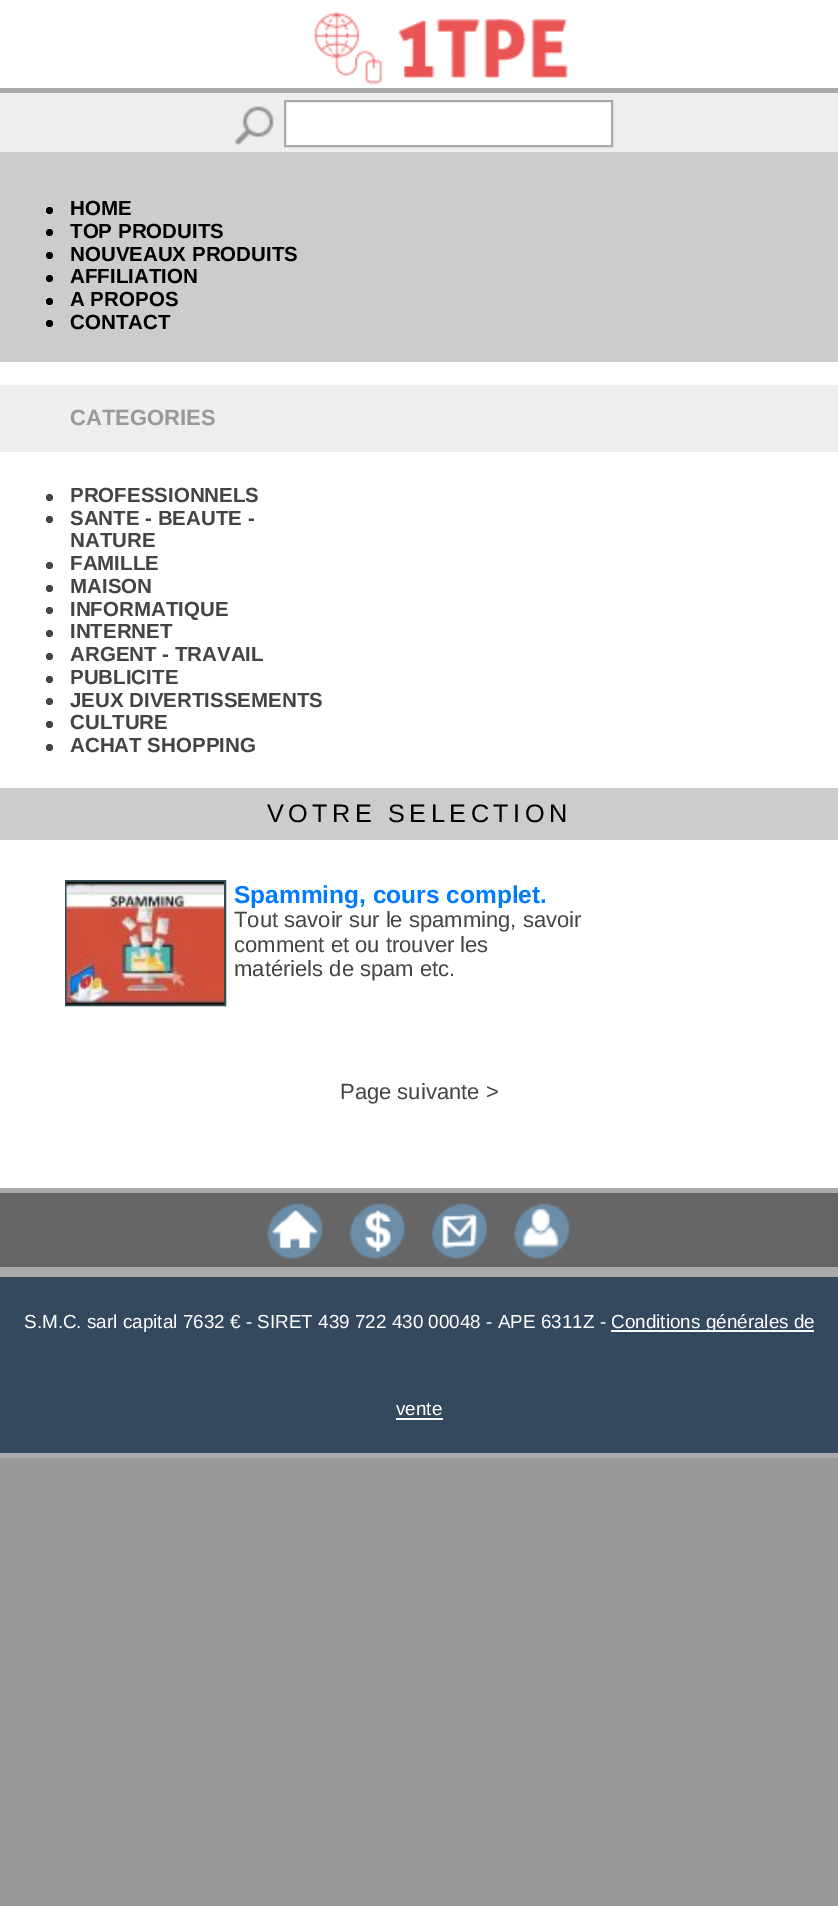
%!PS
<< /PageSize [838 1906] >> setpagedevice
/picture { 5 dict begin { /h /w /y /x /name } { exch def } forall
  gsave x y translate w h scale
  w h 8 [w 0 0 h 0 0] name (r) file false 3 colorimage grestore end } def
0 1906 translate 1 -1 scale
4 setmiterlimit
0.6 setgray
0 0 838 1906 rectfill
1 setgray
0 0 838 88 rectfill
0.667 setgray
0 88 838 5 rectfill
(img1.rgb) 313 12 255 73 picture
1 setgray
0 362 838 826 rectfill
0.933 setgray
0 93 838 59 rectfill
(img2.rgb) 234 106 40 40 picture
1 setgray
newpath 285 101 moveto 612 101 lineto 612 146 lineto 285 146 lineto closepath gsave fill grestore
0.667 setgray
2 setlinewidth
stroke
0.8 setgray
0 152 838 210 rectfill
0 setgray
newpath 49.5 210.5 3.5 0 360 arc closepath fill
/LiberationSans-Bold [20.5 0 0 -20.5 0 0] selectfont
70 215 moveto (HOME) show
newpath 49.5 232.5 3.5 0 360 arc closepath fill
70 238 moveto (TOP PRODUITS) show
newpath 49.5 255.5 3.5 0 360 arc closepath fill
70 261 moveto (NOUVEAUX PRODUITS) show
newpath 49.5 278.5 3.5 0 360 arc closepath fill
70 283 moveto (AFFILIATION) show
newpath 49.5 301.5 3.5 0 360 arc closepath fill
70 306 moveto (A PROPOS) show
newpath 49.5 323.5 3.5 0 360 arc closepath fill
70 329 moveto (CONTACT) show
0.933 setgray
0 385 838 67 rectfill
/LiberationSans-Bold [22 0 0 -22 0 0] selectfont
0.6 setgray
70 425 moveto (CATEGORIES) show
0.267 setgray
newpath 49.5 497.5 3.5 0 360 arc closepath fill
/LiberationSans-Bold [20.5 0 0 -20.5 0 0] selectfont
70 502 moveto (PROFESSIONNELS) show
newpath 49.5 519.5 3.5 0 360 arc closepath fill
70 525 moveto (SANTE - BEAUTE -) show
70 547 moveto (NATURE) show
newpath 49.5 565.5 3.5 0 360 arc closepath fill
70 570 moveto (FAMILLE) show
newpath 49.5 588.5 3.5 0 360 arc closepath fill
70 593 moveto (MAISON) show
newpath 49.5 610.5 3.5 0 360 arc closepath fill
70 616 moveto (INFORMATIQUE) show
newpath 49.5 633.5 3.5 0 360 arc closepath fill
70 638 moveto (INTERNET) show
newpath 49.5 656.5 3.5 0 360 arc closepath fill
70 661 moveto (ARGENT - TRAVAIL) show
newpath 49.5 679.5 3.5 0 360 arc closepath fill
70 684 moveto (PUBLICITE) show
newpath 49.5 701.5 3.5 0 360 arc closepath fill
70 707 moveto (JEUX DIVERTISSEMENTS) show
newpath 49.5 724.5 3.5 0 360 arc closepath fill
70 729 moveto (CULTURE) show
newpath 49.5 747.5 3.5 0 360 arc closepath fill
70 752 moveto (ACHAT SHOPPING) show
0.8 setgray
0 788 838 52 rectfill
/LiberationSans-Regular [25.25 0 0 -25.25 0 0] selectfont
0 setgray
267 822 moveto 4.5 0 (VOTRE SELECTION) ashow
0.196 0.302 0.329 setrgbcolor
66 881 159 124 rectstroke
(img3.rgb) 66 882 158 123 picture
/LiberationSans-Bold [24.5 0 0 -24.5 0 0] selectfont
0 0.482 1 setrgbcolor
234 903 moveto (Spamming, cours complet.) show
/LiberationSans-Regular [22 0 0 -22 0 0] selectfont
0.267 setgray
234 927 moveto (Tout savoir sur le spamming, savoir) show
234 952 moveto (comment et ou trouver les) show
234 976 moveto (matériels de spam etc.) show
340 1099 moveto (Page suivante >) show
0.4 setgray
0 1193 838 74 rectfill
0.667 setgray
0 1188 838 5 rectfill
0 1267 838 10 rectfill
(img4.rgb) 267 1203 56 56 picture
(img5.rgb) 349 1203 56 56 picture
(img6.rgb) 432 1203 55 56 picture
(img7.rgb) 514 1203 56 56 picture
0.204 0.286 0.369 setrgbcolor
0 1277 838 176 rectfill
0.667 setgray
0 1453 838 5 rectfill
/LiberationSans-Regular [18.9 0 0 -18.9 0 0] selectfont
1 setgray
24 1328 moveto (S.M.C. sarl capital 7632 € - SIRET 439 722 430 00048 - APE 6311Z -) show
611 1330 203 2 rectfill
611 1328 moveto (Conditions générales de) show
396 1415 moveto (vente) show
396 1418 47 2 rectfill
showpage
